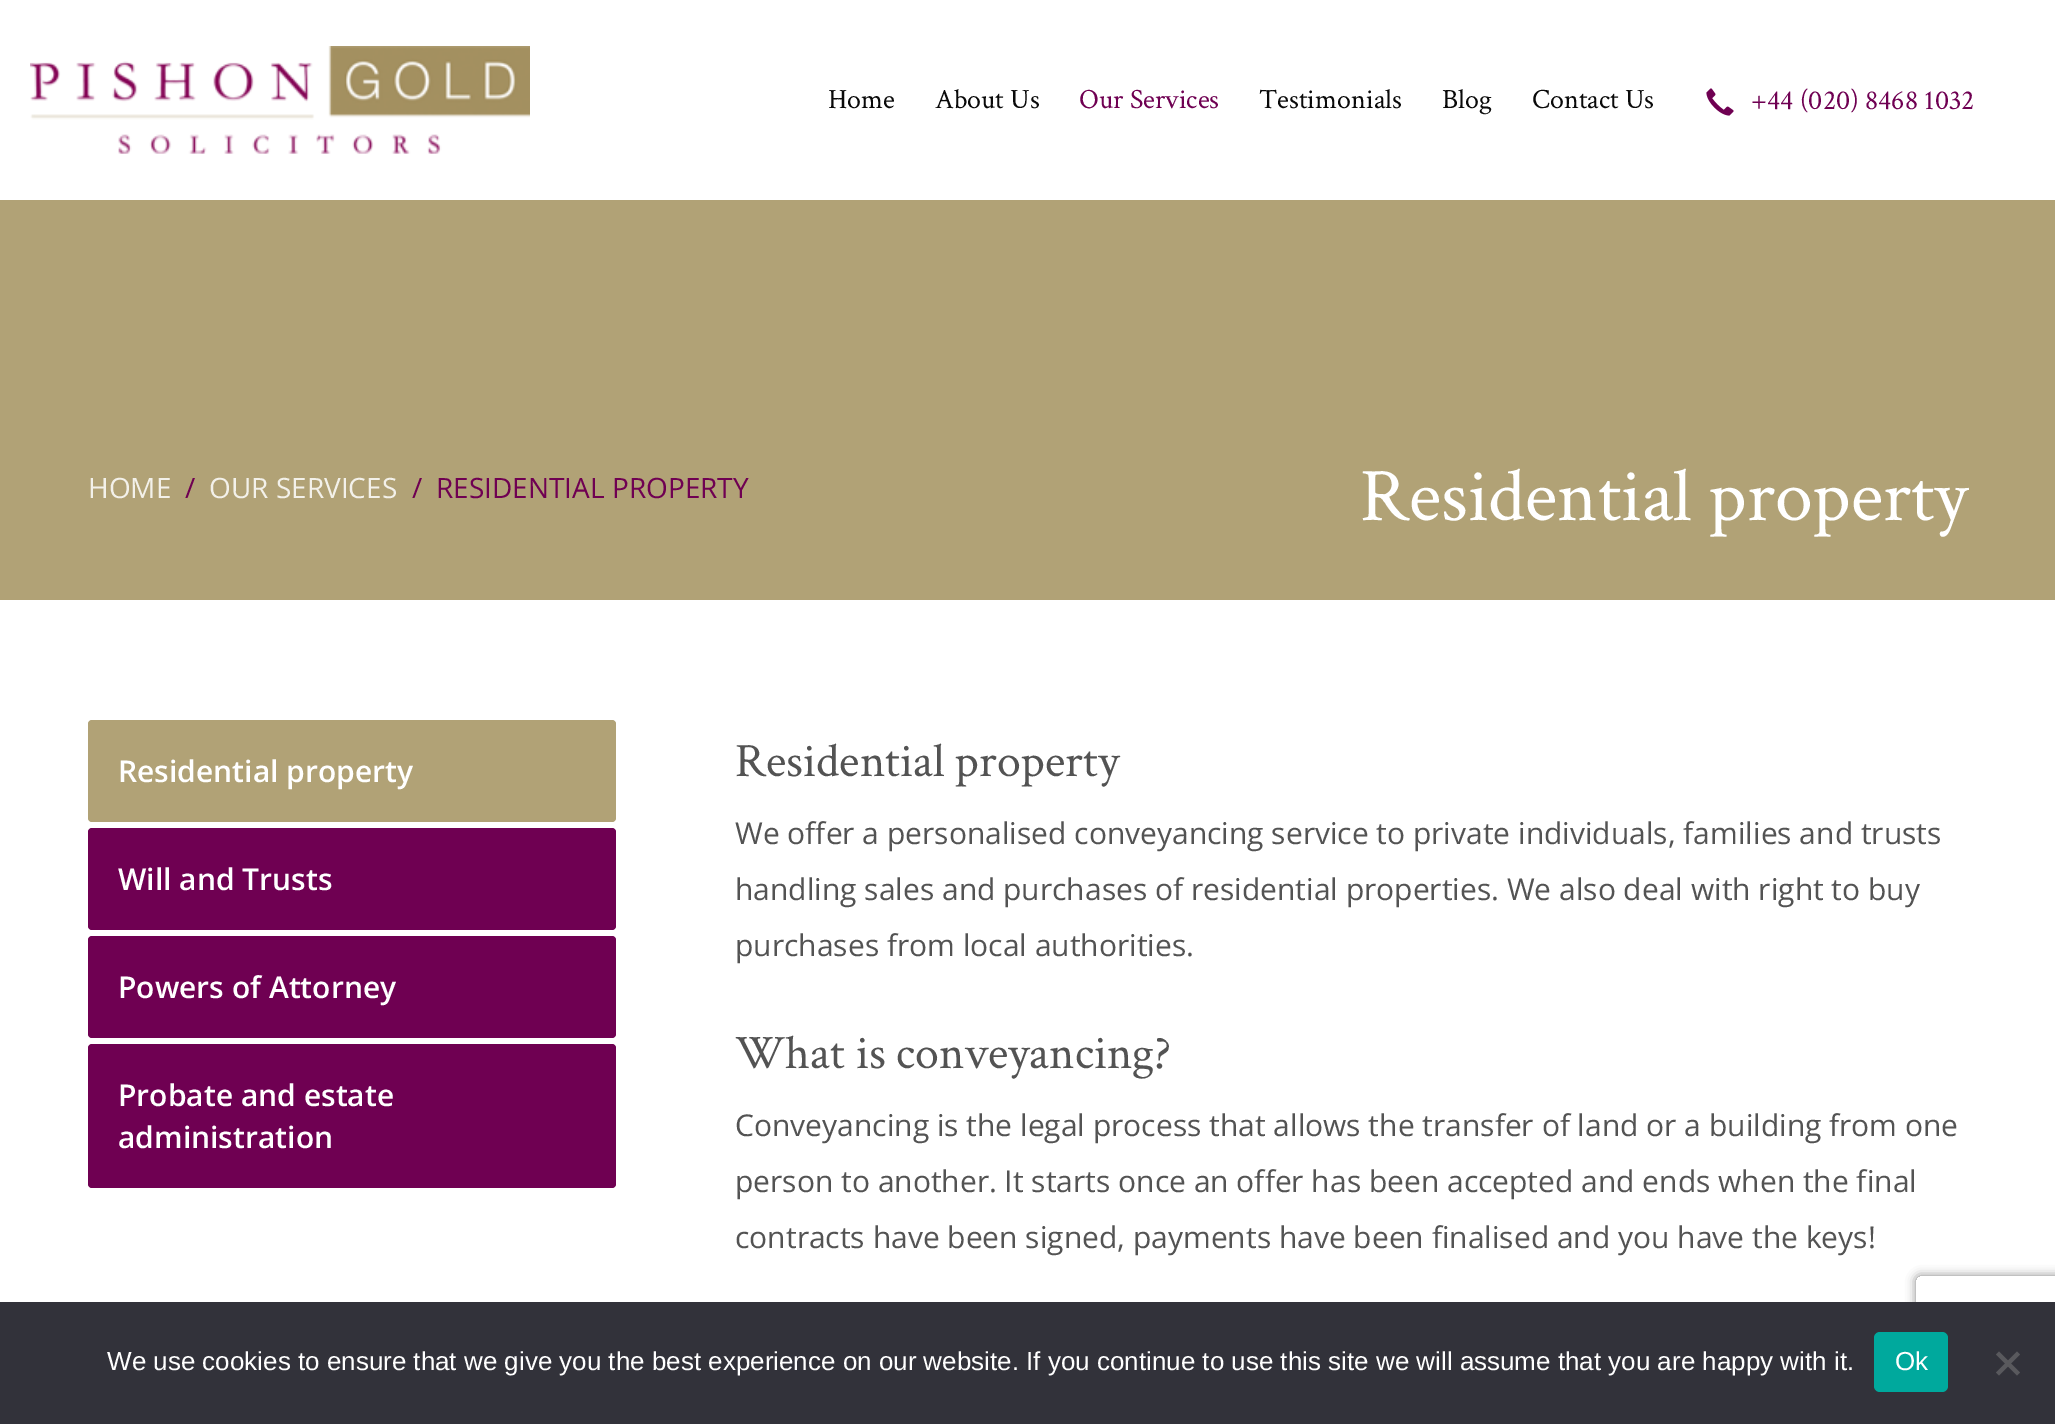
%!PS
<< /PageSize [2055 1424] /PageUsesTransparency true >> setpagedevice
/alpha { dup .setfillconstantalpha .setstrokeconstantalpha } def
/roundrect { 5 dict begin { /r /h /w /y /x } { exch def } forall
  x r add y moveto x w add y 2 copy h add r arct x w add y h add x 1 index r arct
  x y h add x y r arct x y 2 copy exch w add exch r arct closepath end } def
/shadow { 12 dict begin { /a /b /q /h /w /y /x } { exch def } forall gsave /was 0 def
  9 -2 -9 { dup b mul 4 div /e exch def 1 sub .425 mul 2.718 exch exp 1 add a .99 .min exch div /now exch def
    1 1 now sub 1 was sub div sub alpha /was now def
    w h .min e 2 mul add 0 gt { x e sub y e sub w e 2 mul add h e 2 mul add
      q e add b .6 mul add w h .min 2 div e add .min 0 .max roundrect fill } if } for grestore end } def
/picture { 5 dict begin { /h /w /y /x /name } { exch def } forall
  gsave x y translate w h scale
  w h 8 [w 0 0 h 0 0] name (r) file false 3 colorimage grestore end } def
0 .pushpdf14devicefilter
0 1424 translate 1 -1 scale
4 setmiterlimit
1 setgray
0 0 2055 1424 rectfill
(img1.rgb) 30 46 500 108 picture
/CrimsonText-Regular [28 0 0 -28 0 0] selectfont
0.039 setgray
828 108 moveto (Home) show
935 108 moveto (About Us) show
0.435 0 0.322 setrgbcolor
1079 108 moveto (Our Services) show
0.039 setgray
1259 108 moveto (Testimonials) show
1442 108 moveto (Blog) show
1532 108 moveto (Contact Us) show
(img2.rgb) 1706 88 28 28 picture
0.435 0 0.322 setrgbcolor
1751 109 moveto (+44 \(020\) 8468 1032) show
0.694 0.635 0.463 setrgbcolor
0 200 2055 400 rectfill
/OpenSans-Regular [28 0 0 -28 0 0] selectfont
0.953 0.945 0.918 setrgbcolor
88 498 moveto (HOME) show
0.435 0 0.322 setrgbcolor
185 498 moveto (/) show
0.953 0.945 0.918 setrgbcolor
209 498 moveto (OUR SERVICES) show
0.435 0 0.322 setrgbcolor
412 498 moveto (/) show
436 498 moveto (RESIDENTIAL PROPERTY) show
/CrimsonText-Regular [76 0 0 -76 0 0] selectfont
1 setgray
1360 520 moveto (Residential property) show
0.694 0.635 0.463 setrgbcolor
88 720 528 102 4 roundrect fill
/OpenSans-SemiBold [30 0 0 -30 0 0] selectfont
1 setgray
118 782 moveto (Residential property) show
0.435 0 0.322 setrgbcolor
88 828 528 102 4 roundrect fill
1 setgray
118 890 moveto (Will and Trusts) show
0.435 0 0.322 setrgbcolor
88 936 528 102 4 roundrect fill
1 setgray
118 998 moveto (Powers of Attorney) show
0.435 0 0.322 setrgbcolor
88 1044 528 144 4 roundrect fill
1 setgray
118 1106 moveto (Probate and estate) show
118 1148 moveto (administration) show
/CrimsonText-Regular [48 0 0 -48 0 0] selectfont
0.325 setgray
735 776 moveto (Residential property) show
/OpenSans-Regular [30 0 0 -30 0 0] selectfont
735 844 moveto (We offer a personalised conveyancing service to private individuals, families and trusts) show
735 900 moveto (handling sales and purchases of residential properties. We also deal with right to buy) show
735 956 moveto (purchases from local authorities.) show
/CrimsonText-Regular [48 0 0 -48 0 0] selectfont
735 1068 moveto (What is conveyancing?) show
/OpenSans-Regular [30 0 0 -30 0 0] selectfont
735 1136 moveto (Conveyancing is the legal process that allows the transfer of land or a building from one) show
735 1192 moveto (person to another. It starts once an offer has been accepted and ends when the final) show
735 1248 moveto (contracts have been signed, payments have been finalised and you have the keys!) show
gsave
newpath 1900 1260 moveto 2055 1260 lineto 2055 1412 lineto 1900 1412 lineto closepath 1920 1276 moveto 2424 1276 lineto 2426 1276 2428 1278 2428 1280 curveto 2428 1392 lineto 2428 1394 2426 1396 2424 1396 curveto 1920 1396 lineto 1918 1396 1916 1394 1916 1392 curveto 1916 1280 lineto 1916 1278 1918 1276 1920 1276 curveto closepath eoclip newpath
0.502 setgray
1916 1276 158 120 4 5 1 shadow
grestore
0.196 0.196 0.227 setrgbcolor
0 1302 2055 122 rectfill
/LiberationSans-Regular [26 0 0 -26 0 0] selectfont
1 setgray
107 1370 moveto (We use cookies to ensure that we give you the best experience on our website. If you continue to use this site we will assume that you are happy with it.) show
0 0.663 0.616 setrgbcolor
1874 1332 74 60 6 roundrect fill
1 setgray
1895 1370 moveto (Ok) show
0.349 0.349 0.365 setrgbcolor
newpath 2017 1351.5 moveto 2020 1354.5 lineto 1999 1375.5 lineto 1996 1372.5 lineto closepath fill
newpath 1996 1354.5 moveto 1999 1351.5 lineto 2020 1372.5 lineto 2017 1375.5 lineto closepath fill
.poppdf14devicefilter showpage
